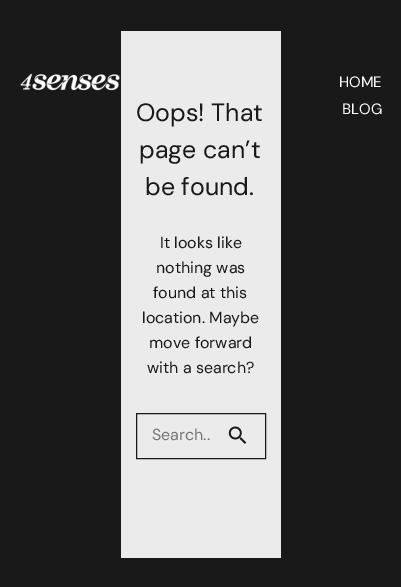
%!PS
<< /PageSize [401 587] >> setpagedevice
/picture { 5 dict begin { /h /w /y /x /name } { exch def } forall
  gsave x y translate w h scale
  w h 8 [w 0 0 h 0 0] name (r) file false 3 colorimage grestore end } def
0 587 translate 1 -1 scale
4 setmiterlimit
0.098 setgray
0 0 401 587 rectfill
(img1.rgb) 20 73 100 18 picture
/DMSans-Regular [15 0 0 -15 0 0] selectfont
1 setgray
339 87 moveto (HOME) show
342 114 moveto (BLOG) show
0.922 setgray
121 31 160 527 rectfill
/DMSans-Regular [25 0 0 -25 0 0] selectfont
0.098 setgray
136 121 moveto (Oops! That) show
139 158 moveto (page can’t) show
145 195 moveto (be found.) show
/DMSans-Regular [16 0 0 -16 0 0] selectfont
160 248 moveto (It looks like) show
156 273 moveto (nothing was) show
153 298 moveto (found at this) show
142 323 moveto (location. Maybe) show
149 348 moveto (move forward) show
147 373 moveto (with a search?) show
136.5 413.5 129 45 rectstroke
0.459 setgray
152 440 moveto (Search..) show
(img2.rgb) 228 426 19 18 picture
showpage
